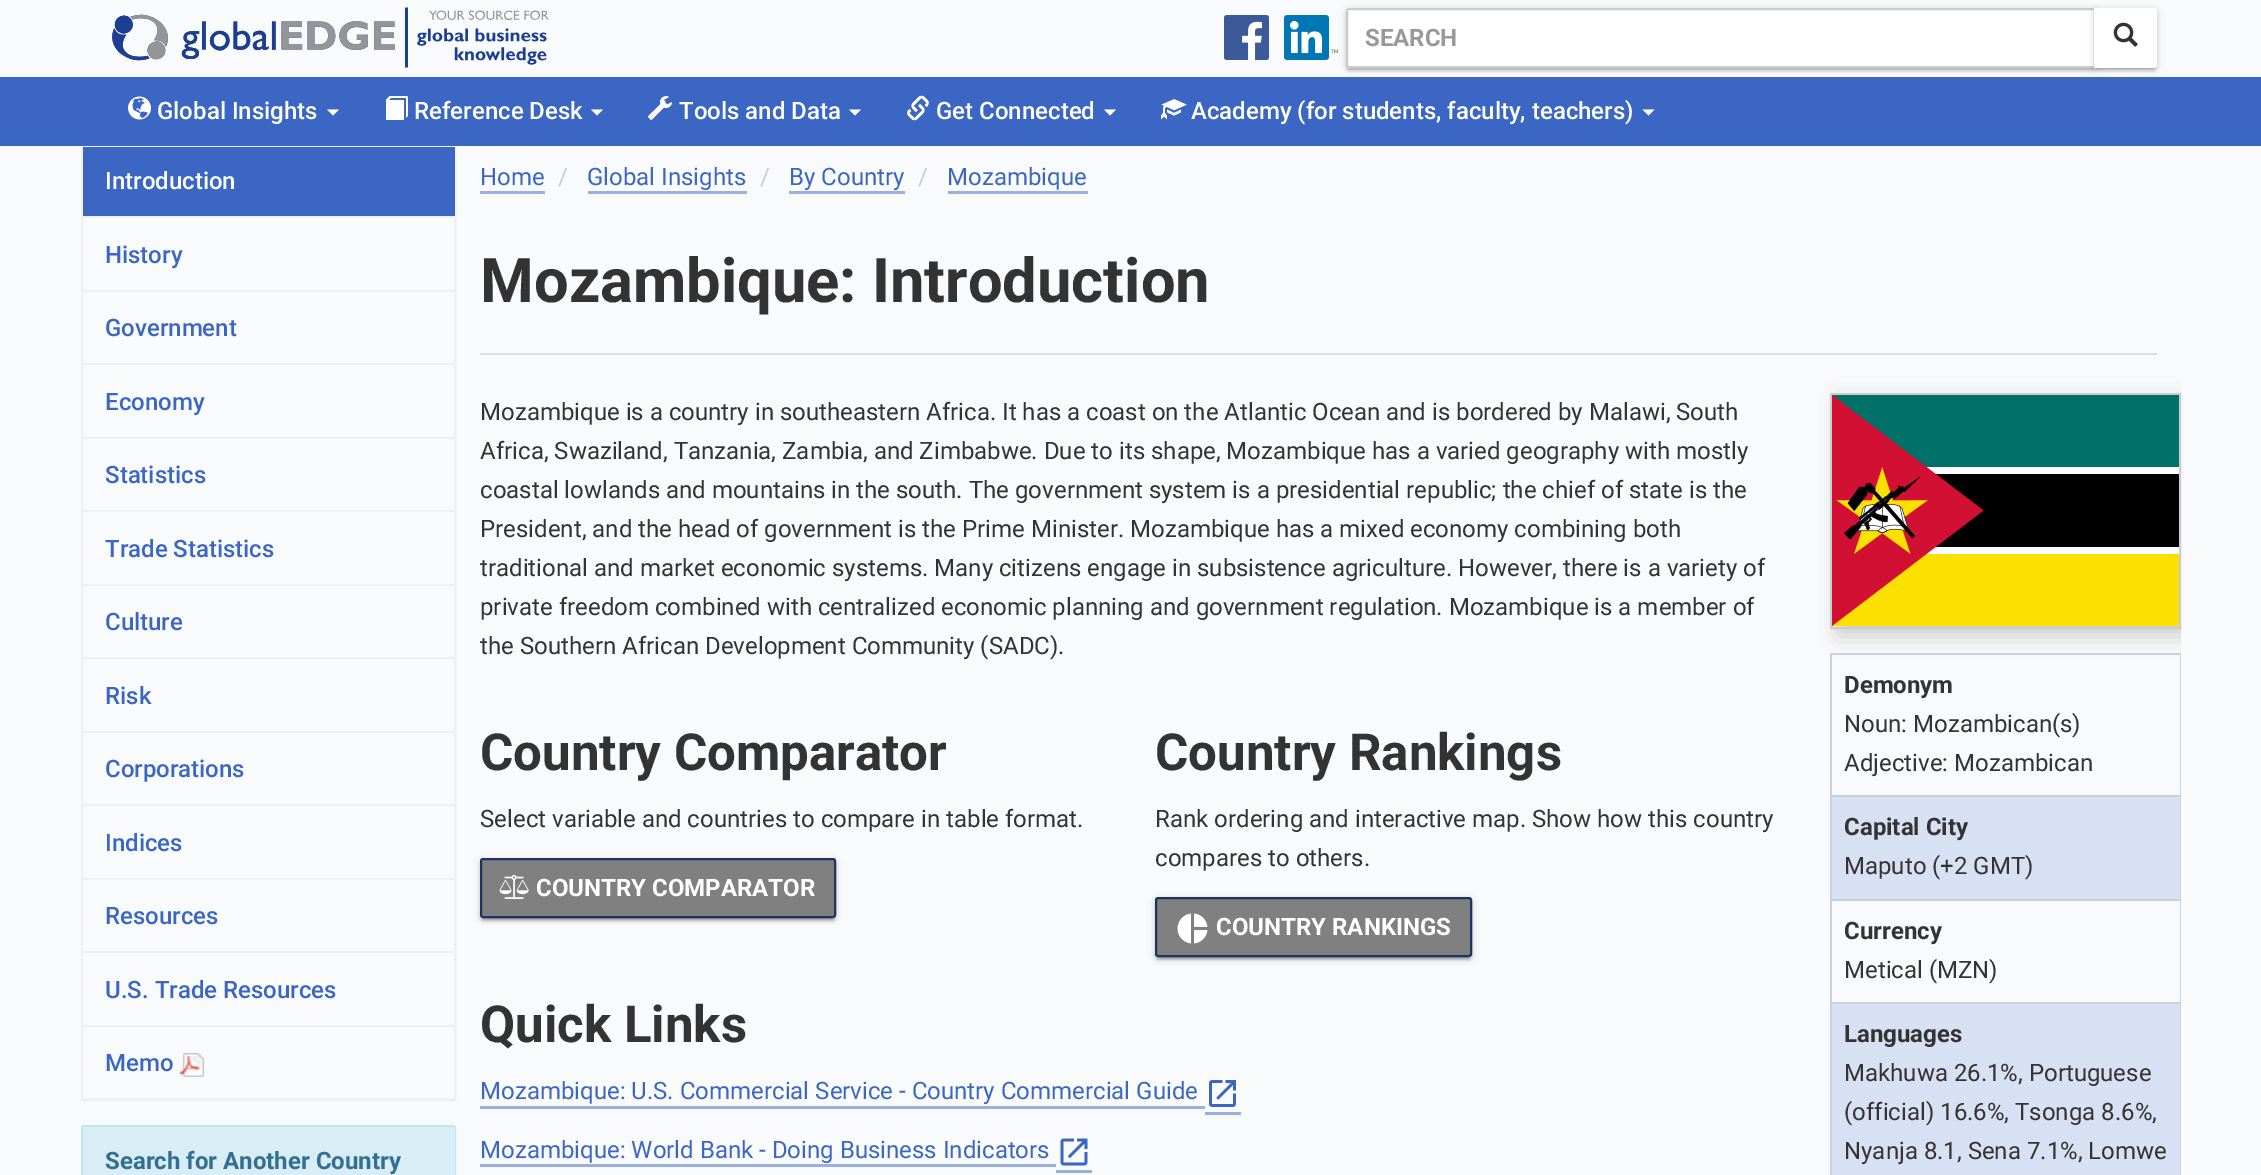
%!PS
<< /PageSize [2261 1175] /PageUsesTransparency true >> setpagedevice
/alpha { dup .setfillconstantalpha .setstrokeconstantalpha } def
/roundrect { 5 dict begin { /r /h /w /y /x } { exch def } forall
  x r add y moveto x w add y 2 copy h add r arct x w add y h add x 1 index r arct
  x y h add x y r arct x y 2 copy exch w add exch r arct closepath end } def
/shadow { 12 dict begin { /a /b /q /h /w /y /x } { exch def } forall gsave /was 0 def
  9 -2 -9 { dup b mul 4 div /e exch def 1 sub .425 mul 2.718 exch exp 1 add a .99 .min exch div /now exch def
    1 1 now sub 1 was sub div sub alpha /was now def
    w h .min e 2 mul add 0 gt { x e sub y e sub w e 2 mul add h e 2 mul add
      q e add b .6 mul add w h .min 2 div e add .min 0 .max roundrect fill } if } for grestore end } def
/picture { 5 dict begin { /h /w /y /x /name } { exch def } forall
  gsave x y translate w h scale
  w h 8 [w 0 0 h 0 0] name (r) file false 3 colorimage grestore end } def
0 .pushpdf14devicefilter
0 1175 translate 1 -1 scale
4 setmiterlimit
0.976 0.98 0.984 setrgbcolor
0 0 2261 1175 rectfill
(img1.rgb) 112 7 437 61 picture
(img2.rgb) 1224 15 45 45 picture
(img3.rgb) 1284 15 54 45 picture
0.231 0.4 0.769 setrgbcolor
0 77 2261 69 rectfill
0 setgray
1346 9 750 60 3 4 0.12 shadow
1349 15 744 54 0 1 0.2 shadow
1346 11 750 60 3 1.5 0.14 shadow
1 setgray
newpath 1349 9 moveto 2095 9 lineto 2095 67 lineto 1349 67 lineto 1348 67 1347 66 1347 65 curveto 1347 11 lineto 1347 10 1348 9 1349 9 curveto closepath gsave fill grestore
0.8 setgray
2 setlinewidth
stroke
/Roboto-Bold [24 0 0 -24 0 0] selectfont
0.6 setgray
1365 46 moveto (SEARCH) show
0 setgray
2094 9 63 60 3 4 0.12 shadow
2097 15 57 54 0 1 0.2 shadow
2094 11 63 60 3 1.5 0.14 shadow
1 setgray
newpath 2094 8 moveto 2154 8 lineto 2155.5 8 2157 9.5 2157 11 curveto 2157 65 lineto 2157 66.5 2155.5 68 2154 68 curveto 2094 68 lineto closepath fill
(img4.rgb) 2113 22 25 25 picture
(img5.rgb) 128 96 23 24 picture
/Roboto-Medium [24 0 0 -24 0 0] selectfont
157 119 moveto (Global Insights) show
newpath 327 109.5 moveto 339 109.5 lineto 333 115.5 lineto closepath fill
(img6.rgb) 386 96 22 24 picture
414 119 moveto (Reference Desk) show
newpath 591 109.5 moveto 603 109.5 lineto 597 115.5 lineto closepath fill
(img7.rgb) 648 96 24 24 picture
679 119 moveto (Tools and Data) show
newpath 849 109.5 moveto 861 109.5 lineto 855 115.5 lineto closepath fill
(img8.rgb) 907 95 22 26 picture
936 119 moveto (Get Connected) show
newpath 1104 109.5 moveto 1116 109.5 lineto 1110 115.5 lineto closepath fill
(img9.rgb) 1161 99 26 21 picture
1191 119 moveto (Academy \(for students, faculty, teachers\)) show
newpath 1642.5 109.5 moveto 1654.5 109.5 lineto 1648.5 115.5 lineto closepath fill
0.941 setgray
82 147 373 953 rectstroke
83 216 372 2 rectfill
0.231 0.4 0.769 setrgbcolor
83 147 372 69 rectfill
1 setgray
105 189 moveto (Introduction) show
0.941 setgray
83 290 372 2 rectfill
0.231 0.4 0.769 setrgbcolor
105 263 moveto (History) show
0.941 setgray
83 363 372 2 rectfill
0.231 0.4 0.769 setrgbcolor
105 336 moveto (Government) show
0.941 setgray
83 437 372 2 rectfill
0.231 0.4 0.769 setrgbcolor
105 410 moveto (Economy) show
0.941 setgray
83 510 372 2 rectfill
0.231 0.4 0.769 setrgbcolor
105 483 moveto (Statistics) show
0.941 setgray
83 584 372 2 rectfill
0.231 0.4 0.769 setrgbcolor
105 557 moveto (Trade Statistics) show
0.941 setgray
83 657 372 2 rectfill
0.231 0.4 0.769 setrgbcolor
105 630 moveto (Culture) show
0.941 setgray
83 731 372 2 rectfill
0.231 0.4 0.769 setrgbcolor
105 704 moveto (Risk) show
0.941 setgray
83 804 372 2 rectfill
0.231 0.4 0.769 setrgbcolor
105 777 moveto (Corporations) show
0.941 setgray
83 878 372 2 rectfill
0.231 0.4 0.769 setrgbcolor
105 851 moveto (Indices) show
0.941 setgray
83 951 372 2 rectfill
0.231 0.4 0.769 setrgbcolor
105 924 moveto (Resources) show
0.941 setgray
83 1025 372 2 rectfill
0.231 0.4 0.769 setrgbcolor
105 998 moveto (U.S. Trade Resources) show
0.941 setgray
83 1098 372 1 rectfill
0.231 0.4 0.769 setrgbcolor
105 1071 moveto (Memo) show
(img10.rgb) 180 1053 24 24 picture
1 setgray
82 1126 373 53 2 roundrect gsave fill grestore
0.737 0.91 0.945 setrgbcolor
stroke
0.851 0.929 0.969 setrgbcolor
newpath 84.5 1127 moveto 453.5 1127 lineto 454.5 1127 455 1127.5 455 1128.5 curveto 455 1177 lineto 83 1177 lineto 83 1128.5 lineto 83 1127.5 83.5 1127 84.5 1127 curveto closepath fill
/Roboto-Bold [24 0 0 -24 0 0] selectfont
0.192 0.439 0.561 setrgbcolor
105 1169 moveto (Search for Another Country) show
/Roboto-Regular [24 0 0 -24 0 0] selectfont
0.231 0.4 0.769 setrgbcolor
480 185 moveto (Home) show
0.604 0.69 0.878 setrgbcolor
480 191 65 3 rectfill
0.8 setgray
558 185 moveto (/) show
0.231 0.4 0.769 setrgbcolor
587 185 moveto (Global Insights) show
0.604 0.69 0.878 setrgbcolor
588 191 159 3 rectfill
0.8 setgray
760 185 moveto (/) show
0.231 0.4 0.769 setrgbcolor
789 185 moveto (By Country) show
0.604 0.69 0.878 setrgbcolor
789 191 116 3 rectfill
0.8 setgray
918 185 moveto (/) show
0.231 0.4 0.769 setrgbcolor
947 185 moveto (Mozambique) show
0.604 0.69 0.878 setrgbcolor
948 191 140 3 rectfill
0.867 setgray
480 353 1677 2 rectfill
/Roboto-Bold [61.5 0 0 -61.5 0 0] selectfont
0.2 setgray
480 302 moveto (Mozambique: Introduction) show
/Roboto-Regular [24 0 0 -24 0 0] selectfont
480 420 moveto (Mozambique is a country in southeastern Africa. It has a coast on the Atlantic Ocean and is bordered by Malawi, South) show
480 459 moveto (Africa, Swaziland, Tanzania, Zambia, and Zimbabwe. Due to its shape, Mozambique has a varied geography with mostly) show
480 498 moveto (coastal lowlands and mountains in the south. The government system is a presidential republic; the chief of state is the) show
480 537 moveto (President, and the head of government is the Prime Minister. Mozambique has a mixed economy combining both) show
480 576 moveto (traditional and market economic systems. Many citizens engage in subsistence agriculture. However, there is a variety of) show
480 615 moveto (private freedom combined with centralized economic planning and government regulation. Mozambique is a member of) show
480 654 moveto (the Southern African Development Community \(SADC\).) show
/Roboto-Bold [51 0 0 -51 0 0] selectfont
480 770 moveto (Country Comparator) show
/Roboto-Regular [24 0 0 -24 0 0] selectfont
480 827 moveto (Select variable and countries to compare in table format.) show
0 setgray
480 860 356 60 3 4 0.12 shadow
483 866 350 54 0 1 0.2 shadow
480 861 356 60 3 1.5 0.14 shadow
0.502 setgray
481 859 354 58 2 roundrect gsave fill grestore
0.118 0.2 0.384 setrgbcolor
stroke
(img11.rgb) 499 875 30 24 picture
/Roboto-Bold [24 0 0 -24 0 0] selectfont
1 setgray
536 896 moveto (COUNTRY COMPARATOR) show
/Roboto-Bold [51 0 0 -51 0 0] selectfont
0.2 setgray
1155 770 moveto (Country Rankings) show
/Roboto-Regular [24 0 0 -24 0 0] selectfont
1155 827 moveto (Rank ordering and interactive map. Show how this country) show
1155 866 moveto (compares to others.) show
0 setgray
1155 899 317 60 3 4 0.12 shadow
1158 905 311 54 0 1 0.2 shadow
1155 900 317 60 3 1.5 0.14 shadow
0.502 setgray
1156 898 315 58 2 roundrect gsave fill grestore
0.118 0.2 0.384 setrgbcolor
stroke
(img12.rgb) 1177 913 31 31 picture
/Roboto-Bold [24 0 0 -24 0 0] selectfont
1 setgray
1216 935 moveto (COUNTRY RANKINGS) show
/Roboto-Bold [51 0 0 -51 0 0] selectfont
0.2 setgray
480 1042 moveto (Quick Links) show
0.604 0.69 0.878 setrgbcolor
480 1106 725 3 rectfill
1205 1112 36 3 rectfill
/Roboto-Regular [24 0 0 -24 0 0] selectfont
0.231 0.4 0.769 setrgbcolor
480 1099 moveto (Mozambique: U.S. Commercial Service - Country Commercial Guide) show
(img13.rgb) 1209 1080 27 27 picture
0.604 0.69 0.878 setrgbcolor
480 1164 576 3 rectfill
1056 1170 36 3 rectfill
0.231 0.4 0.769 setrgbcolor
480 1158 moveto (Mozambique: World Bank - Doing Business Indicators) show
(img14.rgb) 1060 1138 28 28 picture
gsave
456 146 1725 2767 rectclip
0.8 setgray
1838 401 351 235 0 11 1 shadow
grestore
0.8 setgray
1831 394 349 234 rectstroke
(img15.rgb) 1832 395 347 231 picture
0.796 0.816 0.867 setrgbcolor
1830 653 351 2 rectfill
2180 653 1 142 rectfill
1830 653 2 142 rectfill
/Roboto-Bold [24 0 0 -24 0 0] selectfont
0.2 setgray
1844 693 moveto (Demonym) show
/Roboto-Regular [24 0 0 -24 0 0] selectfont
1844 732 moveto (Noun: Mozambican\(s\)) show
1844 771 moveto (Adjective: Mozambican) show
0.847 0.878 0.953 setrgbcolor
1832 797 348 102 rectfill
0.796 0.816 0.867 setrgbcolor
1830 795 351 2 rectfill
2180 795 1 104 rectfill
1830 795 2 104 rectfill
/Roboto-Bold [24 0 0 -24 0 0] selectfont
0.2 setgray
1844 835 moveto (Capital City) show
/Roboto-Regular [24 0 0 -24 0 0] selectfont
1844 874 moveto (Maputo \(+2 GMT\)) show
0.796 0.816 0.867 setrgbcolor
1830 899 351 2 rectfill
2180 899 1 103 rectfill
1830 899 2 103 rectfill
/Roboto-Bold [24 0 0 -24 0 0] selectfont
0.2 setgray
1844 939 moveto (Currency) show
/Roboto-Regular [24 0 0 -24 0 0] selectfont
1844 978 moveto (Metical \(MZN\)) show
0.847 0.878 0.953 setrgbcolor
1832 1004 348 171 rectfill
0.796 0.816 0.867 setrgbcolor
1830 1002 351 2 rectfill
2180 1002 1 173 rectfill
1830 1002 2 173 rectfill
/Roboto-Bold [24 0 0 -24 0 0] selectfont
0.2 setgray
1844 1042 moveto (Languages) show
/Roboto-Regular [24 0 0 -24 0 0] selectfont
1844 1081 moveto (Makhuwa 26.1%, Portuguese) show
1844 1120 moveto (\(official\) 16.6%, Tsonga 8.6%,) show
1844 1159 moveto (Nyanja 8.1, Sena 7.1%, Lomwe) show
.poppdf14devicefilter showpage
